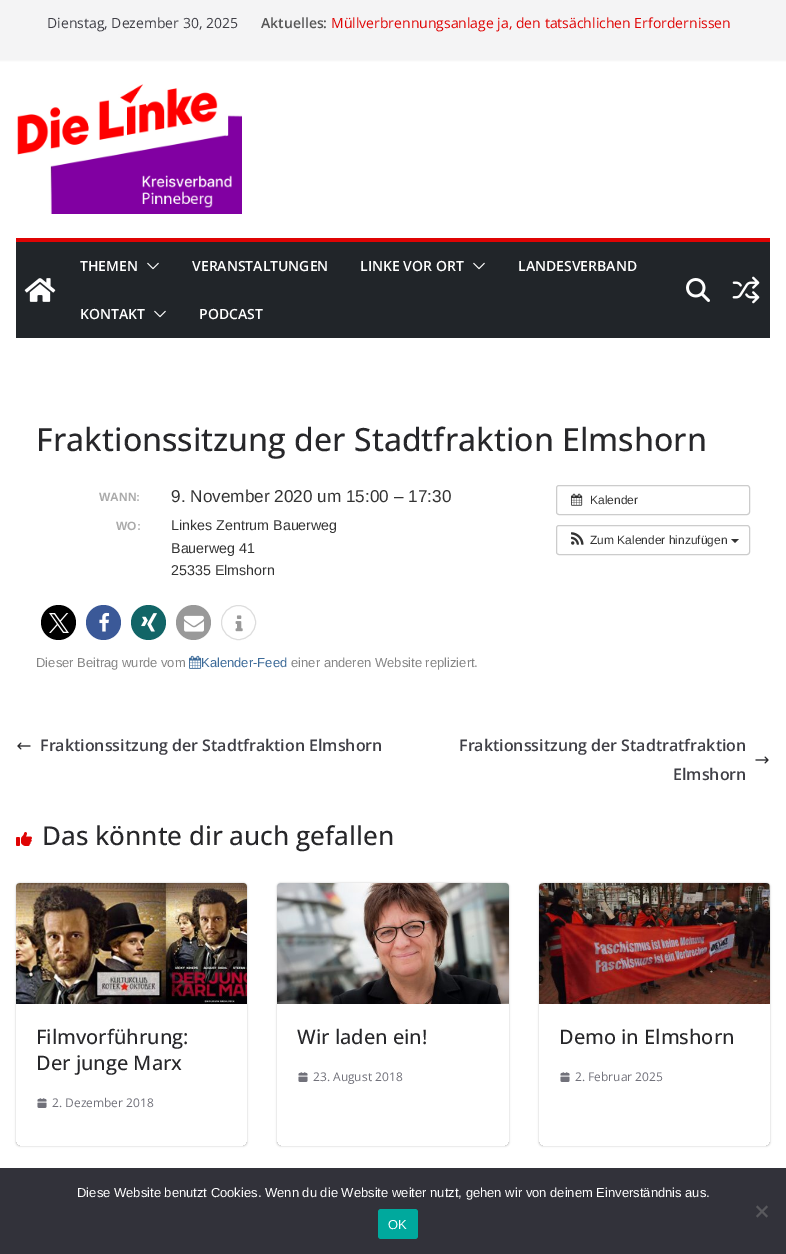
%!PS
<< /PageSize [786 1254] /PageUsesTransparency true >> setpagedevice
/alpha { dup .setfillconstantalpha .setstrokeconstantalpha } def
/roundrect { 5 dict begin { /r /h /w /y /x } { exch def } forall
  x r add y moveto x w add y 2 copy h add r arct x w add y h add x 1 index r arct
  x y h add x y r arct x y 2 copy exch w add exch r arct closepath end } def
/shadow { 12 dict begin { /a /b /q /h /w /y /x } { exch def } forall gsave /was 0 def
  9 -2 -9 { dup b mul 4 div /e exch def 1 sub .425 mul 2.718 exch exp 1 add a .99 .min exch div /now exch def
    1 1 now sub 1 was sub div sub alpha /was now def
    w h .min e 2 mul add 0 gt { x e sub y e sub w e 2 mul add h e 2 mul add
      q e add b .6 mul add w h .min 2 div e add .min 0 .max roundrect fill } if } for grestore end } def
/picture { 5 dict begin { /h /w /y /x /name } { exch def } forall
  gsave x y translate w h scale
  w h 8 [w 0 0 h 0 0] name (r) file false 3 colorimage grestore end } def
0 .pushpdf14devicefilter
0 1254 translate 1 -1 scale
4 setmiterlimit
1 setgray
0 0 786 1254 rectfill
0 setgray
0 0 786 60 0 1 0.1 shadow
0.957 0.957 0.961 setrgbcolor
0 0 786 60 rectfill
/OpenSans-Regular [14 0 0 -14 0 0] selectfont
0.247 0.247 0.275 setrgbcolor
47 28 moveto (Dienstag, Dezember 30, 2025) show
/OpenSans-SemiBold [14 0 0 -14 0 0] selectfont
0.333 setgray
261 28 moveto (Aktuelles:) show
/OpenSans-Regular [14 0 0 -14 0 0] selectfont
0.875 0.016 0.016 setrgbcolor
331 28 moveto (Müllverbrennungsanlage ja, den tatsächlichen Erfordernissen) show
(img1.rgb) 17 84 225 130 picture
0.129 0.145 0.161 setrgbcolor
16 242 754 96 rectfill
0.875 0.016 0.016 setrgbcolor
16 238 754 4 rectfill
(img2.rgb) 24 278 32 24 picture
/OpenSans-SemiBold [14 0 0 -14 0 0] selectfont
1 setgray
80 271 moveto (THEMEN) show
(img3.rgb) 147 262 12 8 picture
192 271 moveto (VERANSTALTUNGEN) show
360 271 moveto (LINKE VOR ORT) show
(img3.rgb) 473 262 12 8 picture
518 271 moveto (LANDESVERBAND) show
80 319 moveto (KONTAKT) show
(img3.rgb) 154 310 12 8 picture
199 319 moveto (PODCAST) show
(img4.rgb) 686 278 24 24 picture
(img5.rgb) 732 276 28 28 picture
/OpenSans-Medium [32 0 0 -32 0 0] selectfont
0.153 0.153 0.165 setrgbcolor
36 451 moveto (Fraktionssitzung der Stadtfraktion Elmshorn) show
/LiberationSans-Bold [12 0 0 -12 0 0] selectfont
0.667 setgray
99 501 moveto (WANN:) show
/LiberationSans-Regular [17.2 0 0 -17.2 0 0] selectfont
0.2 setgray
171 502 moveto (9. November 2020 um 15:00 – 17:30) show
/LiberationSans-Bold [12 0 0 -12 0 0] selectfont
0.667 setgray
116 530 moveto (WO:) show
/LiberationSans-Regular [14.25 0 0 -14.25 0 0] selectfont
0.2 setgray
171 530 moveto (Linkes Zentrum Bauerweg) show
171 553 moveto (Bauerweg 41) show
171 575 moveto (25335 Elmshorn) show
0.8 setgray
556.5 485.5 193 29 2.5 roundrect stroke
(img6.rgb) 571 493 12 13 picture
/LiberationSans-Regular [12 0 0 -12 0 0] selectfont
0.2 setgray
590 504 moveto (Kalender) show
0.8 setgray
556.5 525.5 193 29 2.5 roundrect stroke
(img7.rgb) 571 532 13 13 picture
0.2 setgray
590 544 moveto (Zum Kalender hinzufügen) show
newpath 731 539 moveto 739 539 lineto 735 543 lineto closepath fill
0 setgray
newpath 58.5 622.5 17.5 0 360 arc closepath fill
(img8.rgb) 49 613 20 20 picture
0.231 0.349 0.596 setrgbcolor
newpath 103.5 622.5 17.5 0 360 arc closepath fill
(img9.rgb) 99 612 11 20 picture
0.071 0.396 0.404 setrgbcolor
newpath 148.5 622.5 17.5 0 360 arc closepath fill
(img10.rgb) 141 613 16 19 picture
0.6 setgray
newpath 193.5 622.5 17.5 0 360 arc closepath fill
(img11.rgb) 183 615 21 17 picture
0.867 setgray
newpath 238.5 622.5 17 0 360 arc closepath stroke
(img12.rgb) 235 615 8 17 picture
/LiberationSans-Regular [13 0 0 -13 0 0] selectfont
0.522 setgray
36 667 moveto (Dieser Beitrag wurde vom) show
(img13.rgb) 189 655 13 14 picture
0.239 0.42 0.6 setrgbcolor
201 667 moveto (Kalender-Feed) show
0.522 setgray
291 667 moveto (einer anderen Website repliziert.) show
(img14.rgb) 17 742 14 8 picture
/OpenSans-SemiBold [16 0 0 -16 0 0] selectfont
0.247 0.247 0.275 setrgbcolor
40 751 moveto (Fraktionssitzung der Stadtfraktion Elmshorn) show
459 751 moveto (Fraktionssitzung der Stadtratfraktion) show
(img15.rgb) 755 756 14 8 picture
673 780 moveto (Elmshorn) show
(img16.rgb) 16 832 16 14 picture
/OpenSans-Medium [26 0 0 -26 0 0] selectfont
0.153 0.153 0.165 setrgbcolor
42 845 moveto (Das könnte dir auch gefallen) show
gsave
newpath 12 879 moveto 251 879 lineto 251 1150 lineto 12 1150 lineto closepath 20 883 moveto 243 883 lineto 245 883 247 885 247 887 curveto 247 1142 lineto 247 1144 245 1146 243 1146 curveto 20 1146 lineto 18 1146 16 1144 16 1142 curveto 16 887 lineto 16 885 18 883 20 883 curveto closepath eoclip newpath
0 setgray
16 883 231 263 4 1 0.24 shadow
grestore
(img17.rgb) 16 883 231 121 picture
/OpenSans-Medium [20 0 0 -20 0 0] selectfont
36 1044 moveto (Filmvorführung:) show
36 1070 moveto (Der junge Marx) show
(img18.rgb) 37 1098 10 10 picture
/OpenSans-Regular [12 0 0 -12 0 0] selectfont
0.443 0.443 0.478 setrgbcolor
52 1107 moveto (2. Dezember 2018) show
gsave
newpath 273 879 moveto 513 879 lineto 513 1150 lineto 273 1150 lineto closepath 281 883 moveto 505 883 lineto 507 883 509 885 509 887 curveto 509 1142 lineto 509 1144 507 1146 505 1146 curveto 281 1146 lineto 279 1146 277 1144 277 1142 curveto 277 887 lineto 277 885 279 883 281 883 curveto closepath eoclip newpath
0 setgray
277 883 232 263 4 1 0.24 shadow
grestore
(img19.rgb) 277 883 232 121 picture
/OpenSans-Medium [20 0 0 -20 0 0] selectfont
0.153 0.153 0.165 setrgbcolor
297 1044 moveto (Wir laden ein!) show
(img18.rgb) 298 1072 10 10 picture
/OpenSans-Regular [12 0 0 -12 0 0] selectfont
0.443 0.443 0.478 setrgbcolor
313 1081 moveto (23. August 2018) show
gsave
newpath 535 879 moveto 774 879 lineto 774 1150 lineto 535 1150 lineto closepath 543 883 moveto 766 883 lineto 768 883 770 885 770 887 curveto 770 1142 lineto 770 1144 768 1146 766 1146 curveto 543 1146 lineto 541 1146 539 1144 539 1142 curveto 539 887 lineto 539 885 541 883 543 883 curveto closepath eoclip newpath
0 setgray
539 883 231 263 4 1 0.24 shadow
grestore
(img20.rgb) 539 883 231 121 picture
/OpenSans-Medium [20 0 0 -20 0 0] selectfont
0.153 0.153 0.165 setrgbcolor
559 1044 moveto (Demo in Elmshorn) show
(img18.rgb) 560 1072 10 10 picture
/OpenSans-Regular [12 0 0 -12 0 0] selectfont
0.443 0.443 0.478 setrgbcolor
575 1081 moveto (2. Februar 2025) show
0.196 0.196 0.227 setrgbcolor
0 1168 786 86 rectfill
/LiberationSans-Regular [13 0 0 -13 0 0] selectfont
1 setgray
77 1197 moveto (Diese Website benutzt Cookies. Wenn du die Website weiter nutzt, gehen wir von deinem Einverständnis aus.) show
0.349 0.349 0.365 setrgbcolor
newpath 766.5 1205.5 moveto 768 1207 lineto 757.5 1217.5 lineto 756 1216 lineto closepath fill
newpath 756 1207 moveto 757.5 1205.5 lineto 768 1216 lineto 766.5 1217.5 lineto closepath fill
0 0.663 0.616 setrgbcolor
378 1209 40 30 3 roundrect fill
1 setgray
388 1229 moveto (OK) show
.poppdf14devicefilter showpage
